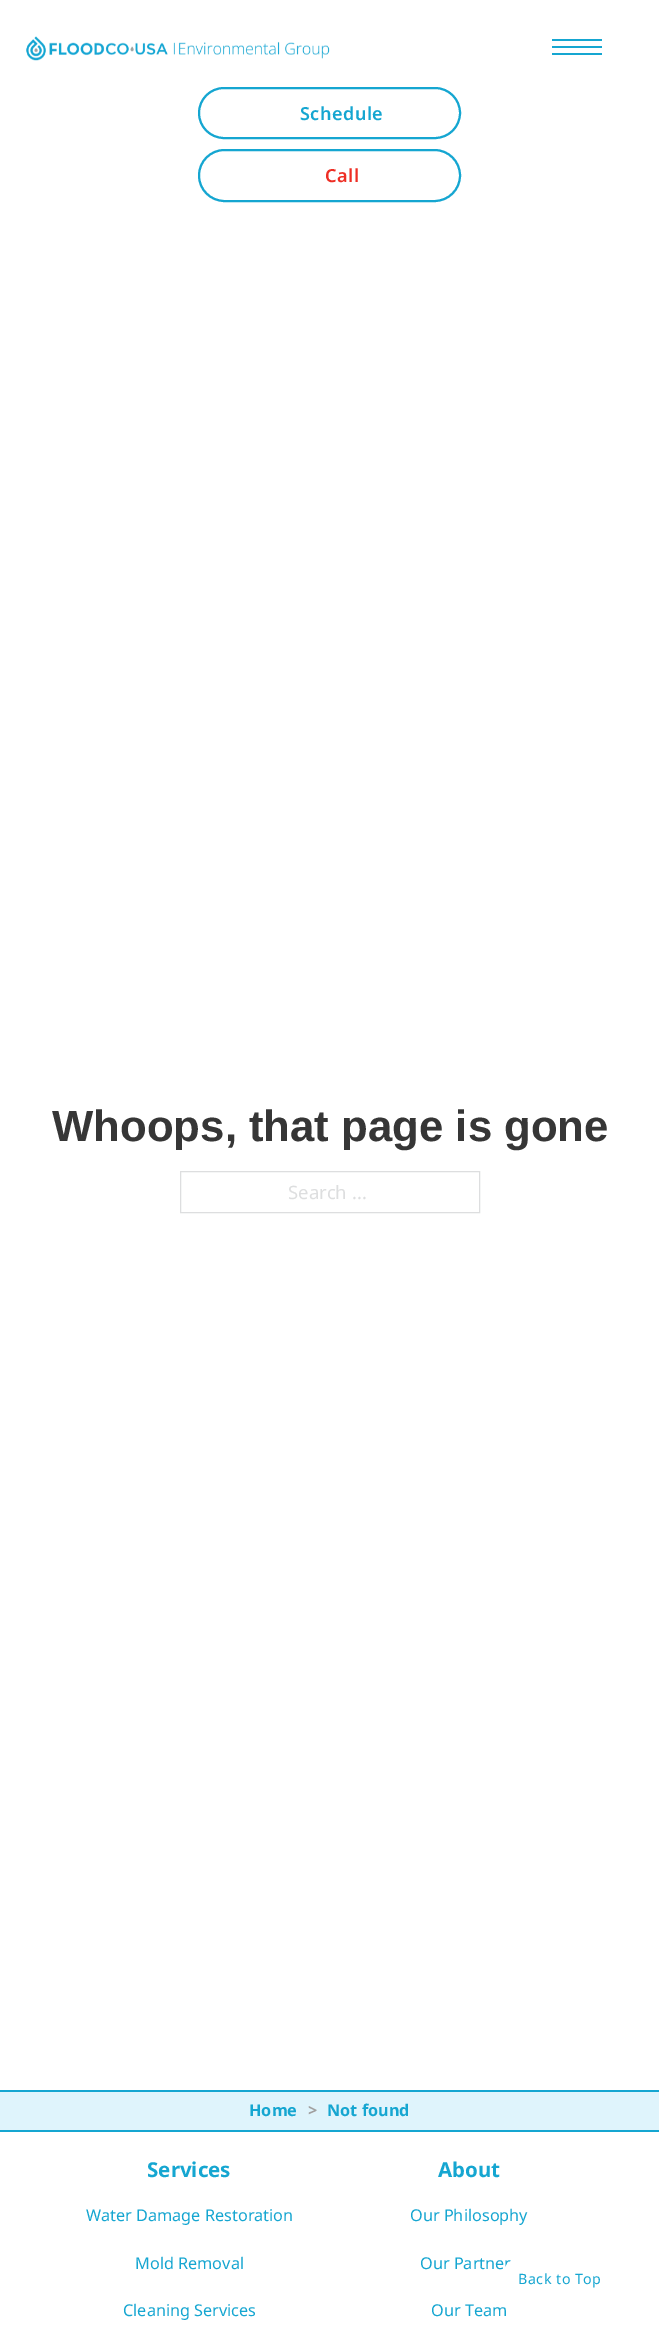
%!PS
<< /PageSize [659 2340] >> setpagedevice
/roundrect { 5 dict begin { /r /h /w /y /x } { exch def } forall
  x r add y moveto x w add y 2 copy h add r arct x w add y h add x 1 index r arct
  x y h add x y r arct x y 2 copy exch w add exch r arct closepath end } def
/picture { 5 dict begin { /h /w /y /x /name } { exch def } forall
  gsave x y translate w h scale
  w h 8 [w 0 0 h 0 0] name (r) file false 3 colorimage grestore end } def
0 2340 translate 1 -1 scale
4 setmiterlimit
1 setgray
0 0 659 2340 rectfill
(img1.rgb) 26 36 304 25 picture
0.082 0.651 0.82 setrgbcolor
552 39 50 2 rectfill
552 46 50 2 rectfill
552 53 50 2 rectfill
2 setlinewidth
199 88 261 50 25 roundrect stroke
/NotoSans-SemiBold [18 0 0 -18 0 0] selectfont
300 120 moveto 0.5 0 (Schedule) ashow
199 150 261 51 25.5 roundrect stroke
0.933 0.18 0.141 setrgbcolor
325 182 moveto 0.5 0 (Call) ashow
/NotoSans-Regular [16.25 0 0 -16.25 0 0] selectfont
0.082 0.651 0.82 setrgbcolor
420 2269 moveto (Our Partner) show
1 setgray
502 2259 136 40 20 roundrect gsave fill grestore
stroke
/NotoSans-Regular [14.25 0 0 -14.25 0 0] selectfont
0.082 0.651 0.82 setrgbcolor
518 2284 moveto 0.5 0 (Back to Top) ashow
/LiberationSans-Bold [43.75 0 0 -43.75 0 0] selectfont
0.212 setgray
52 1141 moveto (Whoops, that page is gone) show
0.867 0.871 0.875 setrgbcolor
1 setlinewidth
180.5 1171.5 299 41 rectstroke
/NotoSans-Regular [18.5 0 0 -18.5 0 0] selectfont
288 1199 moveto (Search ...) show
0.082 0.651 0.82 setrgbcolor
0 2090 659 2 rectfill
0.875 0.957 0.988 setrgbcolor
0 2092 659 38 rectfill
/NotoSans-Bold [16.25 0 0 -16.25 0 0] selectfont
0.082 0.651 0.82 setrgbcolor
249 2116 moveto (Home) show
0.631 0.627 0.627 setrgbcolor
308 2116 moveto (>) show
0.082 0.651 0.82 setrgbcolor
327 2116 moveto (Not found) show
0 2130 659 2 rectfill
/NotoSans-Bold [20.5 0 0 -20.5 0 0] selectfont
147 2177 moveto (Services) show
/NotoSans-Regular [16.25 0 0 -16.25 0 0] selectfont
86 2221 moveto (Water Damage Restoration) show
135 2269 moveto (Mold Removal) show
123 2316 moveto (Cleaning Services) show
/NotoSans-Bold [20.5 0 0 -20.5 0 0] selectfont
438 2177 moveto (About) show
/NotoSans-Regular [16.25 0 0 -16.25 0 0] selectfont
410 2221 moveto (Our Philosophy) show
431 2316 moveto (Our Team) show
showpage
